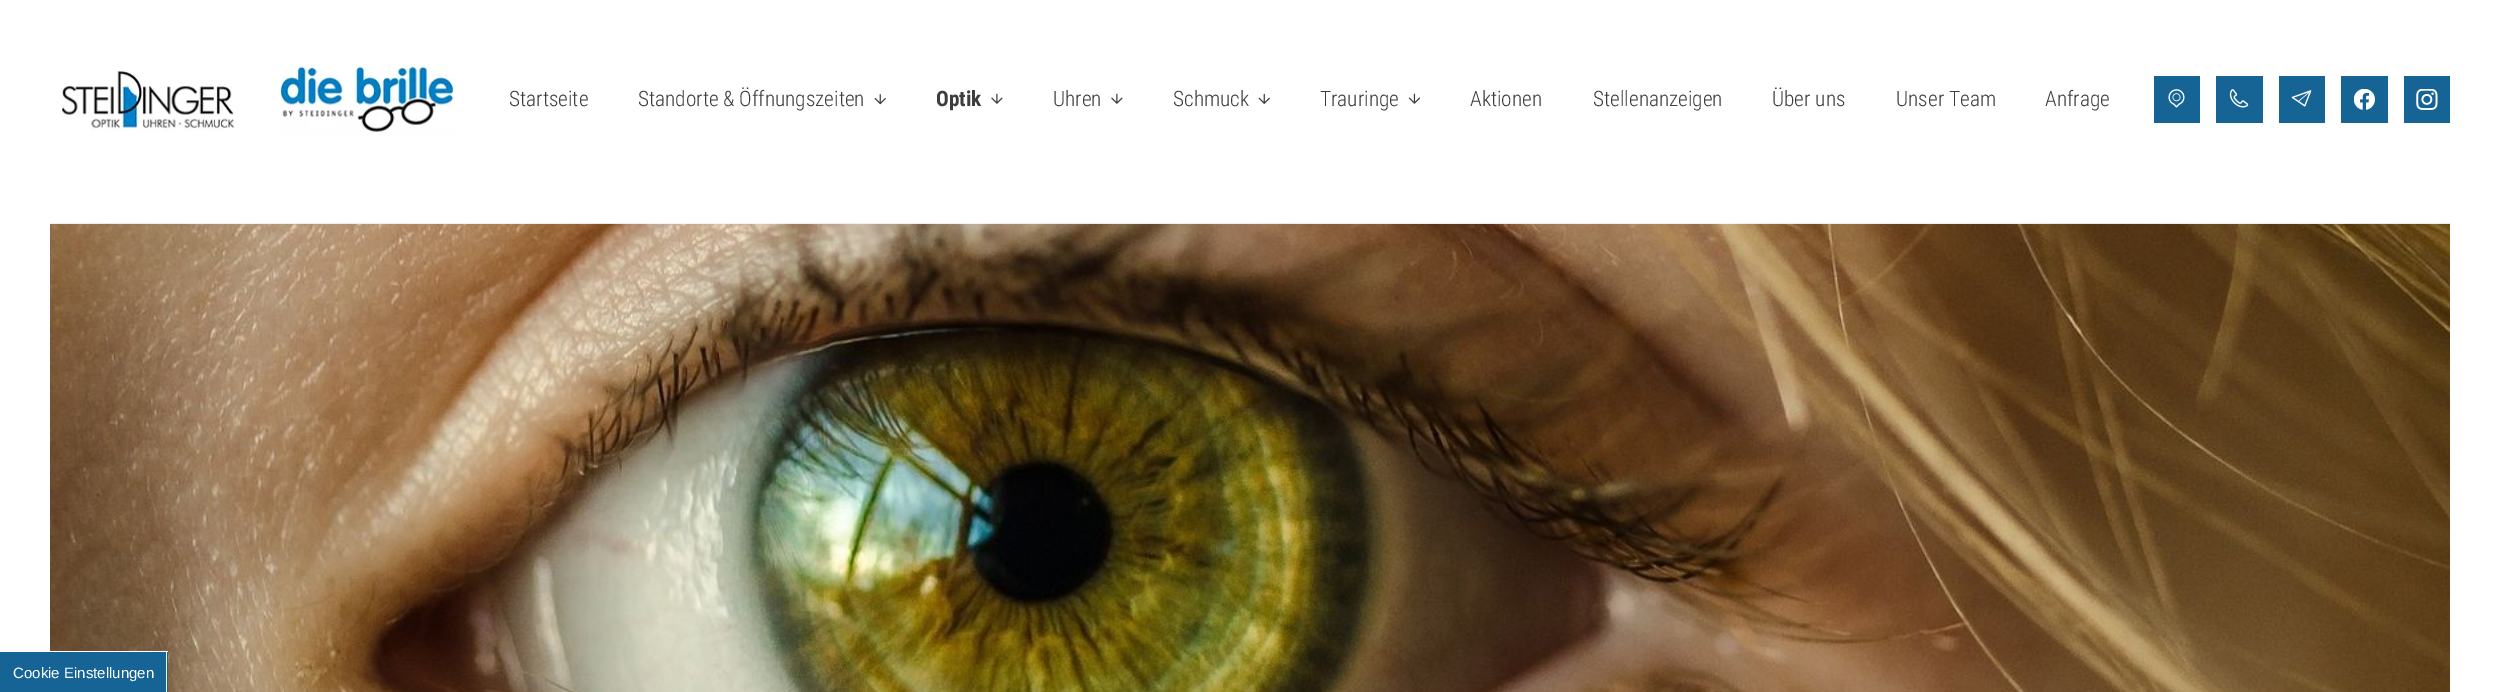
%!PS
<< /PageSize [2499 692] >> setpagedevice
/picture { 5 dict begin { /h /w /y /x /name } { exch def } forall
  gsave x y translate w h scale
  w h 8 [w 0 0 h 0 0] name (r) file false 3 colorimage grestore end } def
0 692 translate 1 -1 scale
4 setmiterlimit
1 setgray
0 0 2499 692 rectfill
(img1.rgb) 62 70 173 61 picture
(img2.rgb) 279 65 176 70 picture
/RobotoCondensed-Light [21.25 0 0 -21.25 0 0] selectfont
0.239 setgray
509 106 moveto (Startseite) show
638 106 moveto (Standorte & Öffnungszeiten) show
(img3.rgb) 874 94 12 11 picture
/RobotoCondensed-Bold [21.25 0 0 -21.25 0 0] selectfont
936 106 moveto (Optik) show
(img4.rgb) 991 93 12 11 picture
/RobotoCondensed-Light [21.25 0 0 -21.25 0 0] selectfont
1053 106 moveto (Uhren) show
(img5.rgb) 1111 93 12 11 picture
1173 106 moveto (Schmuck) show
(img6.rgb) 1258 93 12 11 picture
1320 106 moveto (Trauringe) show
(img7.rgb) 1408 93 13 11 picture
1470 106 moveto (Aktionen) show
1593 106 moveto (Stellenanzeigen) show
1772 106 moveto (Über uns) show
1896 106 moveto (Unser Team) show
2045 106 moveto (Anfrage) show
0.082 0.392 0.584 setrgbcolor
2154 76 46 47 rectfill
(img8.rgb) 2168 89 17 19 picture
2216 76 47 47 rectfill
(img9.rgb) 2229 89 20 19 picture
2279 76 46 47 rectfill
(img10.rgb) 2291 90 21 17 picture
2341 76 47 47 rectfill
(img11.rgb) 2354 89 21 21 picture
2404 76 46 47 rectfill
(img12.rgb) 2416 89 22 21 picture
(img13.rgb) 50 223 2400 1 picture
(img14.rgb) 50 223 2400 469 picture
0 652 168 40 rectfill
1 setgray
50 651 118 1 rectfill
166 651 1 41 rectfill
/LiberationSans-Regular [15 0 0 -15 0 0] selectfont
13 678 moveto (Cookie Einstellungen) show
showpage
